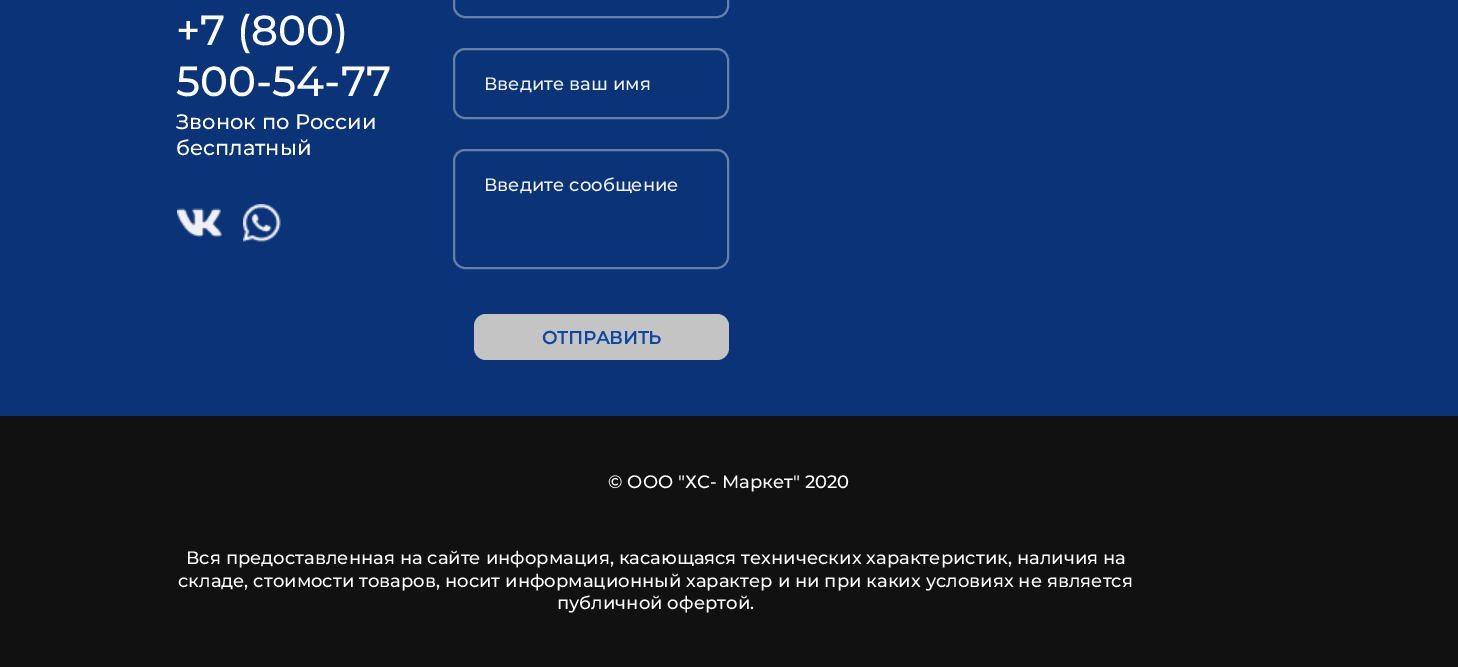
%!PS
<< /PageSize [1458 667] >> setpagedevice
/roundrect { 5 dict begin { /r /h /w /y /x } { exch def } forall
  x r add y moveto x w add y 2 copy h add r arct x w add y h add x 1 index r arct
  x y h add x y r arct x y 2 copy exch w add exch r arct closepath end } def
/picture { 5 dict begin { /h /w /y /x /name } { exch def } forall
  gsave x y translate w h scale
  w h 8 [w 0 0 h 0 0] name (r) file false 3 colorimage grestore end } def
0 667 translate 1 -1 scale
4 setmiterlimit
0.039 0.204 0.467 setrgbcolor
0 0 1458 667 rectfill
/Montserrat-Thin [42 0 0 -42 0 0] selectfont
1 setgray
176 45 moveto (+7 \(800\)) show
176 96 moveto (500-54-77) show
/Montserrat-Thin [21 0 0 -21 0 0] selectfont
176 129 moveto (Звонок по России) show
176 155 moveto (бесплатный) show
(img1.rgb) 177 208 45 29 picture
(img2.rgb) 243 204 38 38 picture
0.4 0.498 0.663 setrgbcolor
2 setlinewidth
454 -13 274 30 11 roundrect stroke
454 49 274 69 11 roundrect stroke
/Montserrat-Thin [18 0 0 -18 0 0] selectfont
0.945 0.941 0.961 setrgbcolor
484 90 moveto (Введите ваш имя) show
0.4 0.498 0.663 setrgbcolor
454 150 274 118 11 roundrect stroke
0.945 0.941 0.961 setrgbcolor
484 191 moveto (Введите сообщение) show
0.769 setgray
474 314 255 46 12 roundrect fill
/Montserrat-Bold [18 0 0 -18 0 0] selectfont
0.051 0.278 0.635 setrgbcolor
542 344 moveto (ОТПРАВИТЬ) show
0.067 setgray
0 416 1458 251 rectfill
/Montserrat-Thin [18 0 0 -18 0 0] selectfont
1 setgray
608 488 moveto (© ООО "ХС- Маркет" 2020) show
186 564 moveto (Вся предоставленная на сайте информация, касающаяся технических характеристик, наличия на) show
178 587 moveto (складе, стоимости товаров, носит информационный характер и ни при каких условиях не является) show
557 609 moveto (публичной офертой.) show
showpage
